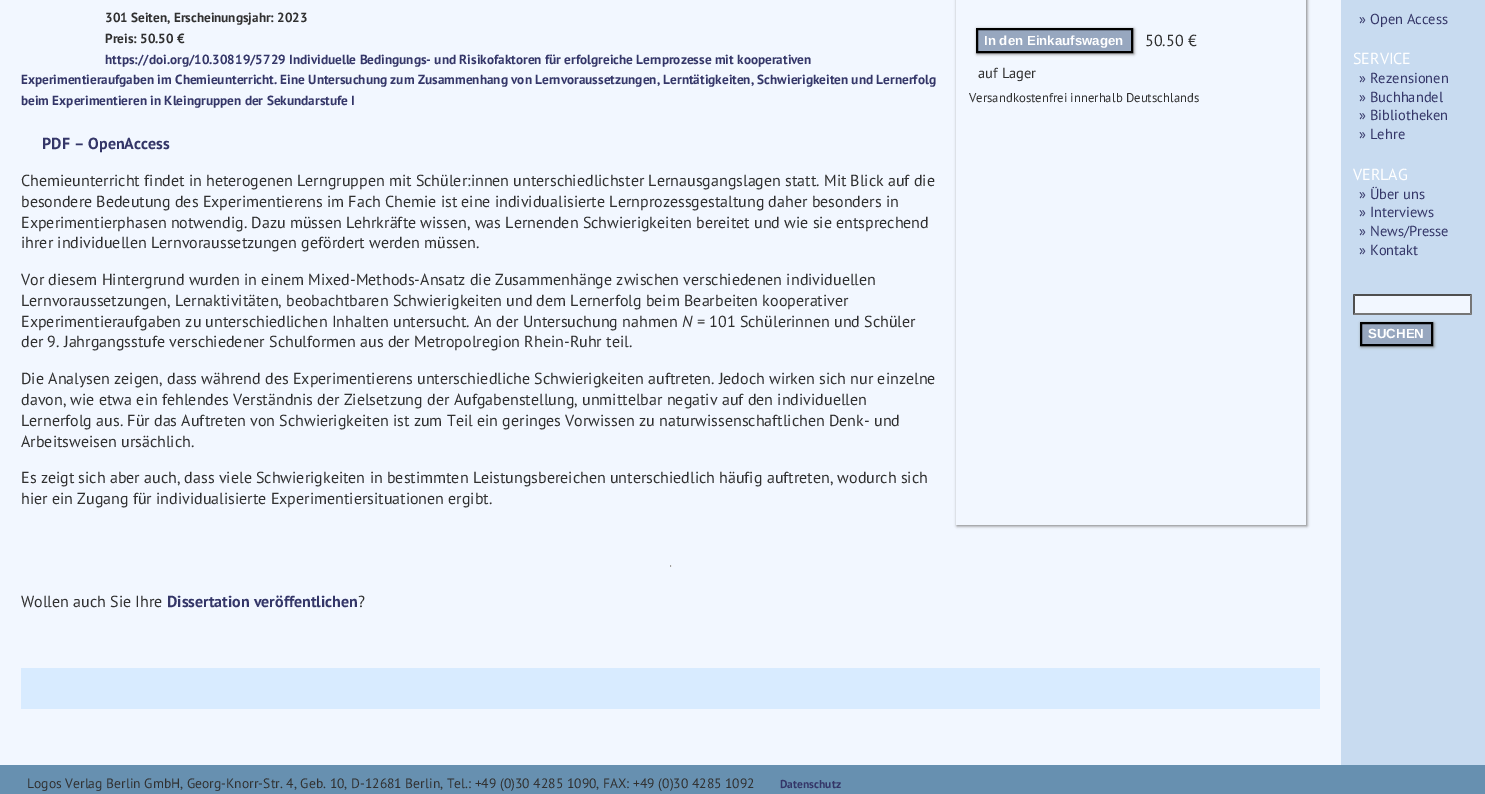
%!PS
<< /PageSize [1485 794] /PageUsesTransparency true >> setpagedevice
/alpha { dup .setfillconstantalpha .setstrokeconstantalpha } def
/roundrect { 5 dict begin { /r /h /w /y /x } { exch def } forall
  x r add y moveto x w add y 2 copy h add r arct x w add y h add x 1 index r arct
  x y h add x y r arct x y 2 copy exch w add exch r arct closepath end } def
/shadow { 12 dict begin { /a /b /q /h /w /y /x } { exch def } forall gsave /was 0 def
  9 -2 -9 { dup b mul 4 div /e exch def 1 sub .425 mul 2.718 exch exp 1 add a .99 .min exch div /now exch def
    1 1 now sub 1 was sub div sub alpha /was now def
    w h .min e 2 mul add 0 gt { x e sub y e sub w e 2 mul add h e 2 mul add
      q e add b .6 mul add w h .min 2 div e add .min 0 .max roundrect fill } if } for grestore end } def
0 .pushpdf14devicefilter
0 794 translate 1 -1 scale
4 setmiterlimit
0.949 0.969 1 setrgbcolor
0 0 1485 794 rectfill
/PTSans-Bold [13.28 0 0 -13.28 0 0] selectfont
0.188 setgray
105 22 moveto (301 Seiten, Erscheinungsjahr: 2023) show
105 43 moveto (Preis: 50.50 €) show
0.204 0.212 0.408 setrgbcolor
105 64 moveto (https://doi.org/10.30819/5729 Individuelle Bedingungs- und Risikofaktoren für erfolgreiche Lernprozesse mit kooperativen) show
21 84 moveto (Experimentieraufgaben im Chemieunterricht. Eine Untersuchung zum Zusammenhang von Lernvoraussetzungen, Lerntätigkeiten, Schwierigkeiten und Lernerfolg) show
21 105 moveto (beim Experimentieren in Kleingruppen der Sekundarstufe I) show
/PTSans-Bold [16 0 0 -16 0 0] selectfont
42 149 moveto (PDF – OpenAccess) show
/PTSans-Regular [16 0 0 -16 0 0] selectfont
0.188 setgray
21 186 moveto (Chemieunterricht findet in heterogenen Lerngruppen mit Schüler:innen unterschiedlichster Lernausgangslagen statt. Mit Blick auf die) show
21 207 moveto (besondere Bedeutung des Experimentierens im Fach Chemie ist eine individualisierte Lernprozessgestaltung daher besonders in) show
21 228 moveto (Experimentierphasen notwendig. Dazu müssen Lehrkräfte wissen, was Lernenden Schwierigkeiten bereitet und wie sie entsprechend) show
21 248 moveto (ihrer individuellen Lernvoraussetzungen gefördert werden müssen.) show
21 285 moveto (Vor diesem Hintergrund wurden in einem Mixed-Methods-Ansatz die Zusammenhänge zwischen verschiedenen individuellen) show
21 306 moveto (Lernvoraussetzungen, Lernaktivitäten, beobachtbaren Schwierigkeiten und dem Lernerfolg beim Bearbeiten kooperativer) show
21 327 moveto (Experimentieraufgaben zu unterschiedlichen Inhalten untersucht. An der Untersuchung nahmen) show
/PTSans-Italic [16 0 0 -16 0 0] selectfont
682 327 moveto (N) show
/PTSans-Regular [16 0 0 -16 0 0] selectfont
697 327 moveto (= 101 Schülerinnen und Schüler) show
21 347 moveto (der 9. Jahrgangsstufe verschiedener Schulformen aus der Metropolregion Rhein-Ruhr teil.) show
21 384 moveto (Die Analysen zeigen, dass während des Experimentierens unterschiedliche Schwierigkeiten auftreten. Jedoch wirken sich nur einzelne) show
21 405 moveto (davon, wie etwa ein fehlendes Verständnis der Zielsetzung der Aufgabenstellung, unmittelbar negativ auf den individuellen) show
21 426 moveto (Lernerfolg aus. Für das Auftreten von Schwierigkeiten ist zum Teil ein geringes Vorwissen zu naturwissenschaftlichen Denk- und) show
21 447 moveto (Arbeitsweisen ursächlich.) show
21 483 moveto (Es zeigt sich aber auch, dass viele Schwierigkeiten in bestimmten Leistungsbereichen unterschiedlich häufig auftreten, wodurch sich) show
21 504 moveto (hier ein Zugang für individualisierte Experimentiersituationen ergibt.) show
gsave
newpath 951 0 moveto 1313 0 lineto 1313 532 lineto 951 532 lineto closepath 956 -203 moveto 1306 -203 lineto 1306 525 lineto 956 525 lineto closepath eoclip newpath
0.502 setgray
957 -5 350 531 0 1.5 1 shadow
grestore
0.502 setgray
977 29 157 25 0 1.5 1 shadow
0.592 0.655 0.749 setrgbcolor
newpath 977 29 moveto 1132 29 lineto 1132 52 lineto 977 52 lineto closepath gsave fill grestore
0 setgray
2 setlinewidth
stroke
/LiberationSans-Bold [13.25 0 0 -13.25 0 0] selectfont
1 setgray
984 45 moveto (In den Einkaufswagen) show
/PTSans-Regular [16 0 0 -16 0 0] selectfont
0.188 setgray
1145 46 moveto (50.50 €) show
/PTSans-Regular [14.5 0 0 -14.5 0 0] selectfont
978 78 moveto (auf Lager) show
/PTSans-Regular [12.75 0 0 -12.75 0 0] selectfont
969 102 moveto (Versandkostenfrei innerhalb Deutschlands) show
0.933 setgray
671 565 1 2 rectfill
670 566 2 1 rectfill
0.624 setgray
670 565 1 2 rectfill
/PTSans-Regular [16 0 0 -16 0 0] selectfont
0.188 setgray
21 607 moveto (Wollen auch Sie Ihre) show
/PTSans-Bold [16 0 0 -16 0 0] selectfont
0.204 0.212 0.408 setrgbcolor
167 607 moveto (Dissertation veröffentlichen) show
/PTSans-Regular [16 0 0 -16 0 0] selectfont
0.188 setgray
358 607 moveto (?) show
0.847 0.922 1 setrgbcolor
21 668 1299 41 rectfill
0.784 0.859 0.941 setrgbcolor
1341 0 144 765 rectfill
/PTSans-Regular [14.5 0 0 -14.5 0 0] selectfont
0.204 0.212 0.408 setrgbcolor
1359 24 moveto (» Open Access) show
/PTSans-Regular [16 0 0 -16 0 0] selectfont
1 setgray
1353 64 moveto (SERVICE) show
/PTSans-Regular [14.5 0 0 -14.5 0 0] selectfont
0.204 0.212 0.408 setrgbcolor
1359 83 moveto (» Rezensionen) show
1359 102 moveto (» Buchhandel) show
1359 120 moveto (» Bibliotheken) show
1359 139 moveto (» Lehre) show
/PTSans-Regular [16 0 0 -16 0 0] selectfont
1 setgray
1353 180 moveto (VERLAG) show
/PTSans-Regular [14.5 0 0 -14.5 0 0] selectfont
0.204 0.212 0.408 setrgbcolor
1359 199 moveto (» Über uns) show
1359 217 moveto (» Interviews) show
1359 236 moveto (» News/Presse) show
1359 255 moveto (» Kontakt) show
0.949 0.969 1 setrgbcolor
1353 294 119 21 rectfill
0.31 setgray
newpath 1353 294 moveto 1472 294 lineto 1470 296 lineto 1355 296 lineto closepath fill
0.463 setgray
newpath 1472 294 moveto 1472 315 lineto 1470 313 lineto 1470 296 lineto closepath fill
newpath 1472 315 moveto 1353 315 lineto 1355 313 lineto 1470 313 lineto closepath fill
0.31 setgray
newpath 1353 315 moveto 1353 294 lineto 1355 296 lineto 1355 313 lineto closepath fill
0.502 setgray
1361 323 73 24 0 1.5 1 shadow
0.592 0.655 0.749 setrgbcolor
newpath 1361 323 moveto 1432 323 lineto 1432 345 lineto 1361 345 lineto closepath gsave fill grestore
0 setgray
stroke
/LiberationSans-Bold [13.25 0 0 -13.25 0 0] selectfont
1 setgray
1368 338 moveto (SUCHEN) show
0.404 0.565 0.69 setrgbcolor
0 765 1485 29 rectfill
/PTSans-Regular [13.6 0 0 -13.6 0 0] selectfont
0.188 setgray
27 788 moveto (Logos Verlag Berlin GmbH, Georg-Knorr-Str. 4, Geb. 10, D-12681 Berlin, Tel.: +49 \(0\)30 4285 1090, FAX: +49 \(0\)30 4285 1092) show
/PTSans-Bold [11.5 0 0 -11.5 0 0] selectfont
0.204 0.212 0.408 setrgbcolor
780 788 moveto (Datenschutz) show
.poppdf14devicefilter showpage
